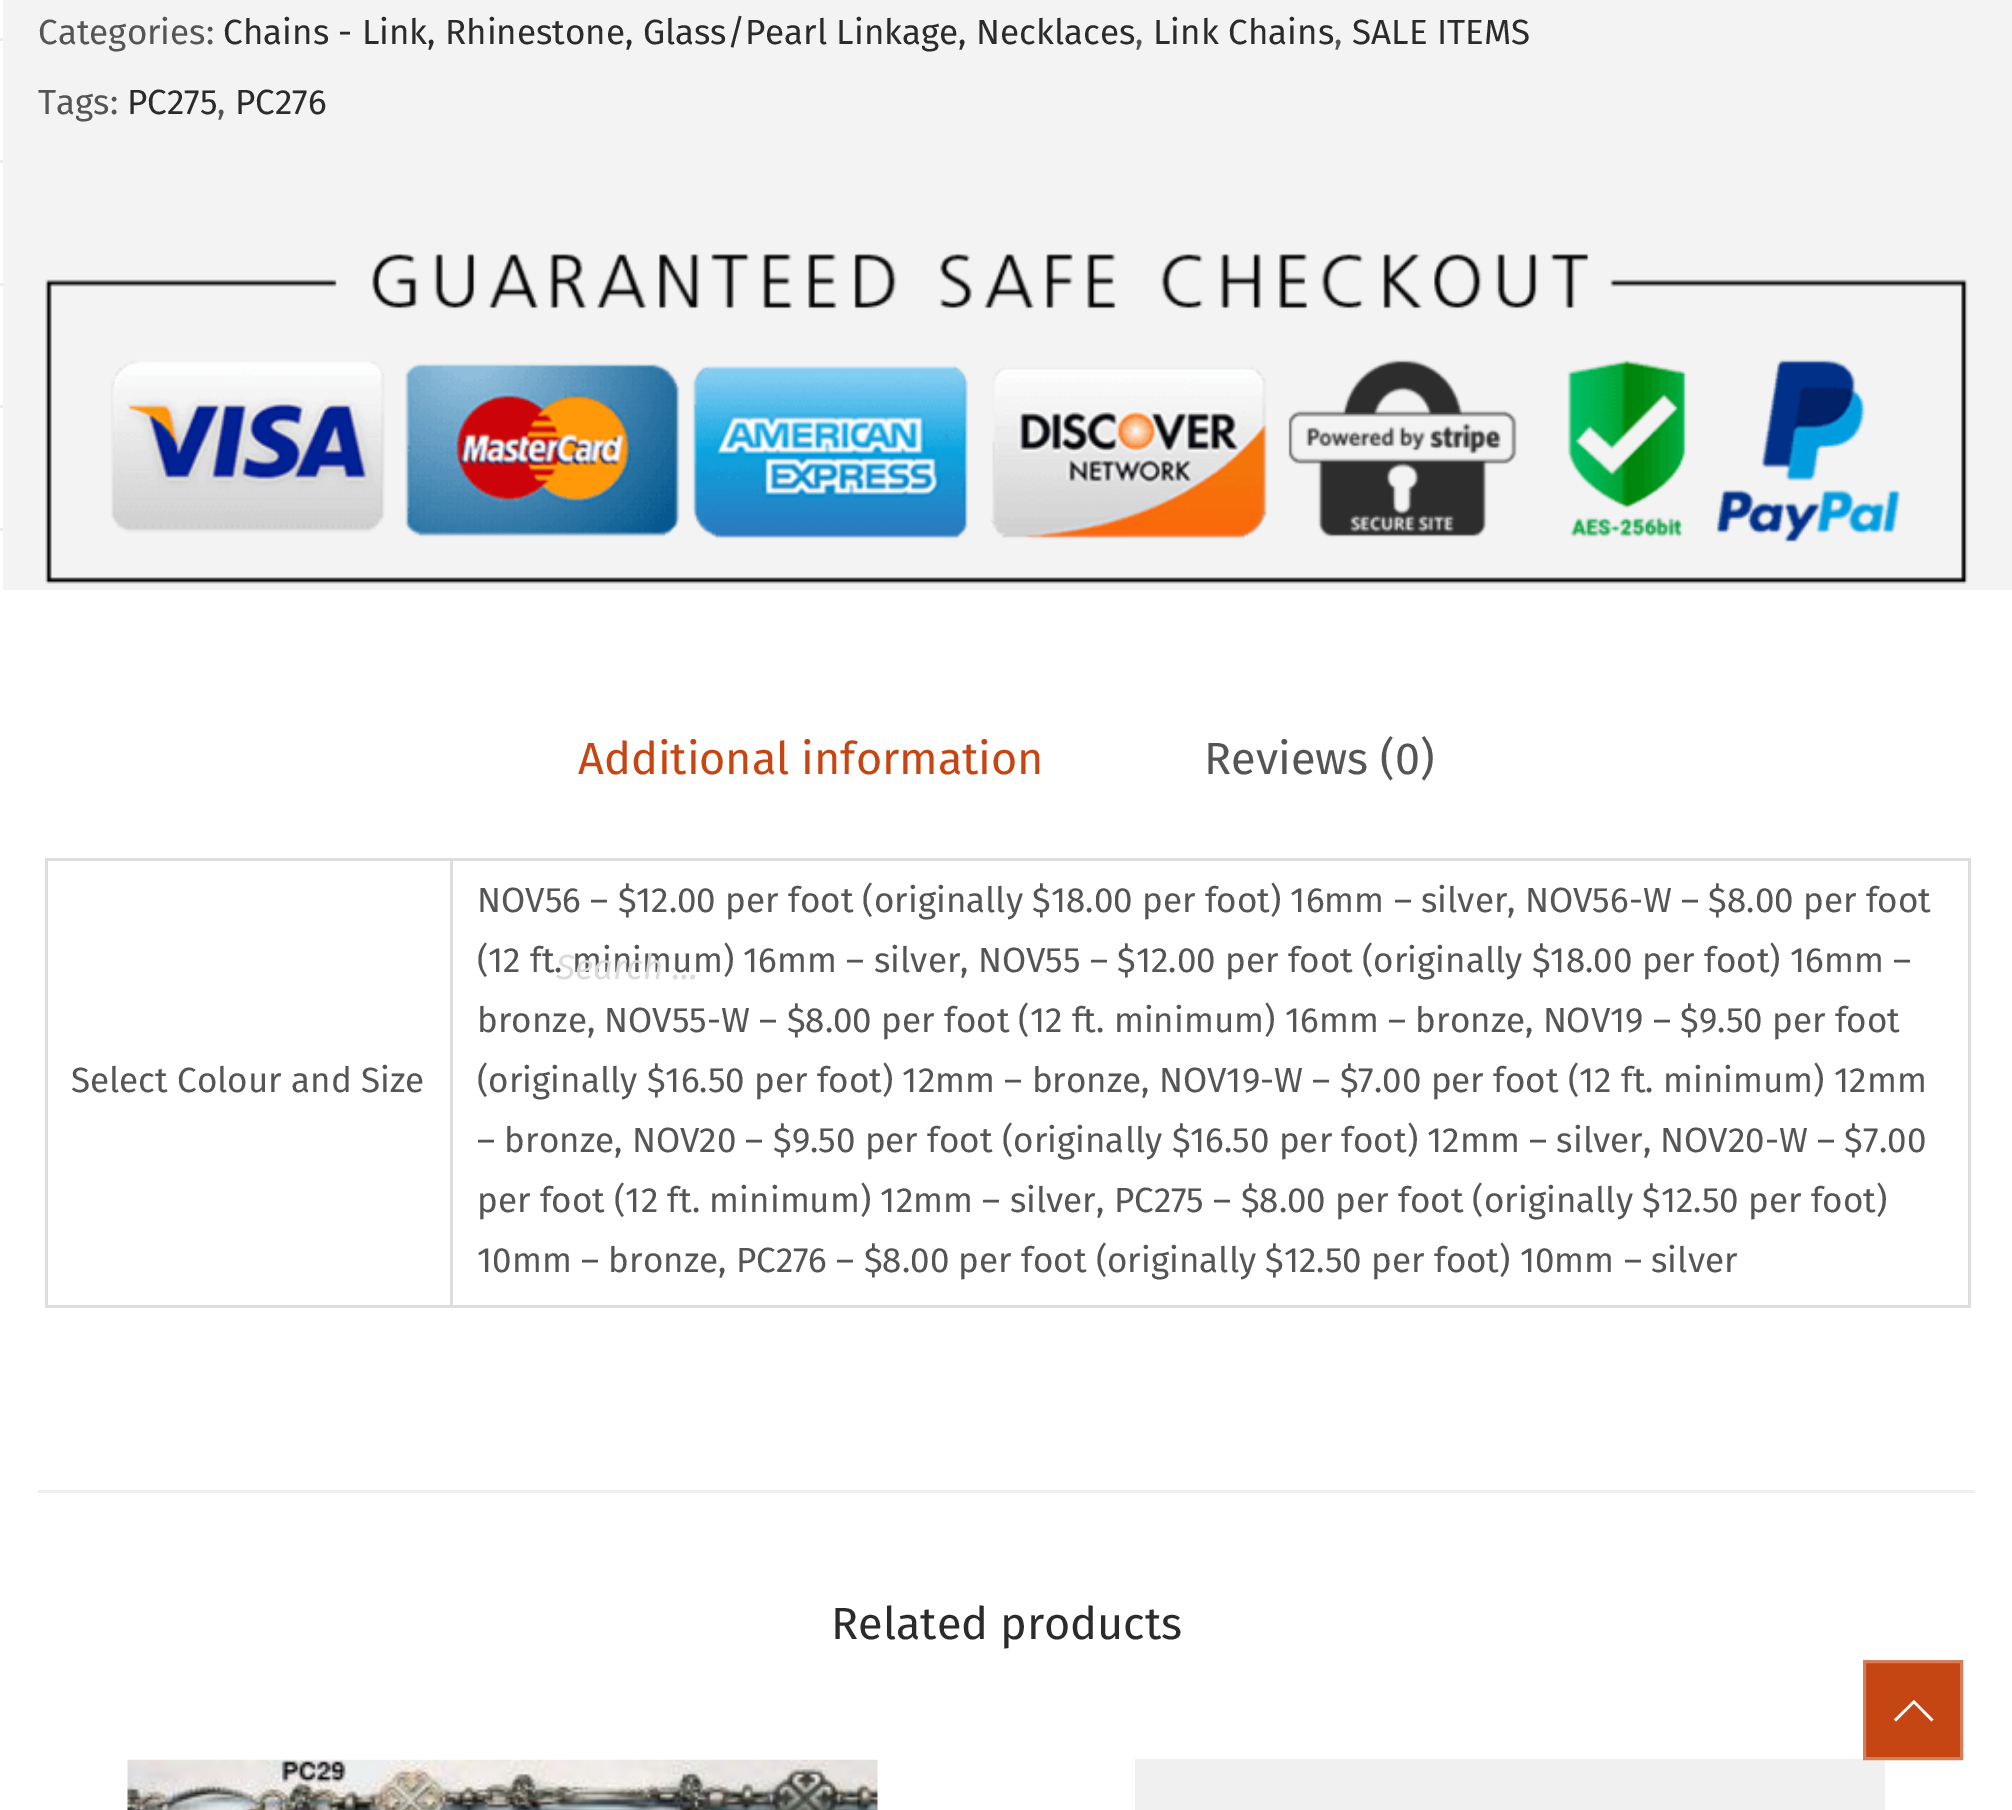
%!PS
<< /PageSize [2012 1810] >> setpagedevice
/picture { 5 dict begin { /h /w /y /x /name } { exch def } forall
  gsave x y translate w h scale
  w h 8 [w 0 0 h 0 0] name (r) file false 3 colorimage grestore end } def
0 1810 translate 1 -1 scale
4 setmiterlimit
1 setgray
0 0 2012 1810 rectfill
0.925 setgray
0 38 3 3 rectfill
0 160 3 3 rectfill
0 283 3 3 rectfill
0 405 3 3 rectfill
0 528 3 3 rectfill
0.953 setgray
3 0 2009 590 rectfill
/FiraSans-Regular [35 0 0 -35 0 0] selectfont
0.333 setgray
38 44 moveto (Categories:) show
0.169 setgray
223 44 moveto (Chains - Link, Rhinestone, Glass/Pearl Linkage, Necklaces) show
0.333 setgray
1135 44 moveto (,) show
0.169 setgray
1153 44 moveto (Link Chains) show
0.333 setgray
1334 44 moveto (,) show
0.169 setgray
1352 44 moveto (SALE ITEMS) show
0.333 setgray
38 114 moveto (Tags:) show
0.169 setgray
127 114 moveto (PC275) show
0.333 setgray
217 114 moveto (,) show
0.169 setgray
235 114 moveto (PC276) show
(img1.rgb) 45 253 1923 331 picture
/FiraSans-Regular [45 0 0 -45 0 0] selectfont
0.773 0.271 0.075 setrgbcolor
578 774 moveto (Additional information) show
0.333 setgray
1204 774 moveto (Reviews \(0\)) show
0.867 setgray
45 858 1925 3 rectfill
1968 858 3 450 rectfill
45 1305 1925 3 rectfill
45 858 3 450 rectfill
450 858 3 450 rectfill
/FiraSans-Regular [35 0 0 -35 0 0] selectfont
0.333 setgray
71 1092 moveto (Select Colour and Size) show
477 912 moveto (NOV56 – $12.00 per foot \(originally $18.00 per foot\) 16mm – silver, NOV56-W – $8.00 per foot) show
477 972 moveto (\(12 ft. minimum\) 16mm – silver, NOV55 – $12.00 per foot \(originally $18.00 per foot\) 16mm –) show
477 1032 moveto (bronze, NOV55-W – $8.00 per foot \(12 ft. minimum\) 16mm – bronze, NOV19 – $9.50 per foot) show
477 1092 moveto (\(originally $16.50 per foot\) 12mm – bronze, NOV19-W – $7.00 per foot \(12 ft. minimum\) 12mm) show
477 1152 moveto (– bronze, NOV20 – $9.50 per foot \(originally $16.50 per foot\) 12mm – silver, NOV20-W – $7.00) show
477 1212 moveto (per foot \(12 ft. minimum\) 12mm – silver, PC275 – $8.00 per foot \(originally $12.50 per foot\)) show
477 1272 moveto (10mm – bronze, PC276 – $8.00 per foot \(originally $12.50 per foot\) 10mm – silver) show
0.937 setgray
38 1490 1937 3 rectfill
/FiraSans-Regular [45 0 0 -45 0 0] selectfont
0.169 setgray
831 1639 moveto (Related products) show
(img2.rgb) 127 1759 751 51 picture
0.941 setgray
1135 1759 750 51 rectfill
/FiraSans-Italic [35 0 0 -35 0 0] selectfont
0.859 setgray
556 979 moveto (Search …) show
0.773 0.271 0.075 setrgbcolor
newpath 1864.5 1661.5 moveto 1961.5 1661.5 lineto 1961.5 1758.5 lineto 1864.5 1758.5 lineto closepath gsave fill grestore
0.839 0.49 0.353 setrgbcolor
3 setlinewidth
stroke
1 setgray
newpath 1933.5 1719.5 moveto 1931.5 1721.5 lineto 1914 1703.5 lineto 1896 1721.5 lineto 1894 1719.5 lineto 1914 1700 lineto closepath fill
showpage
